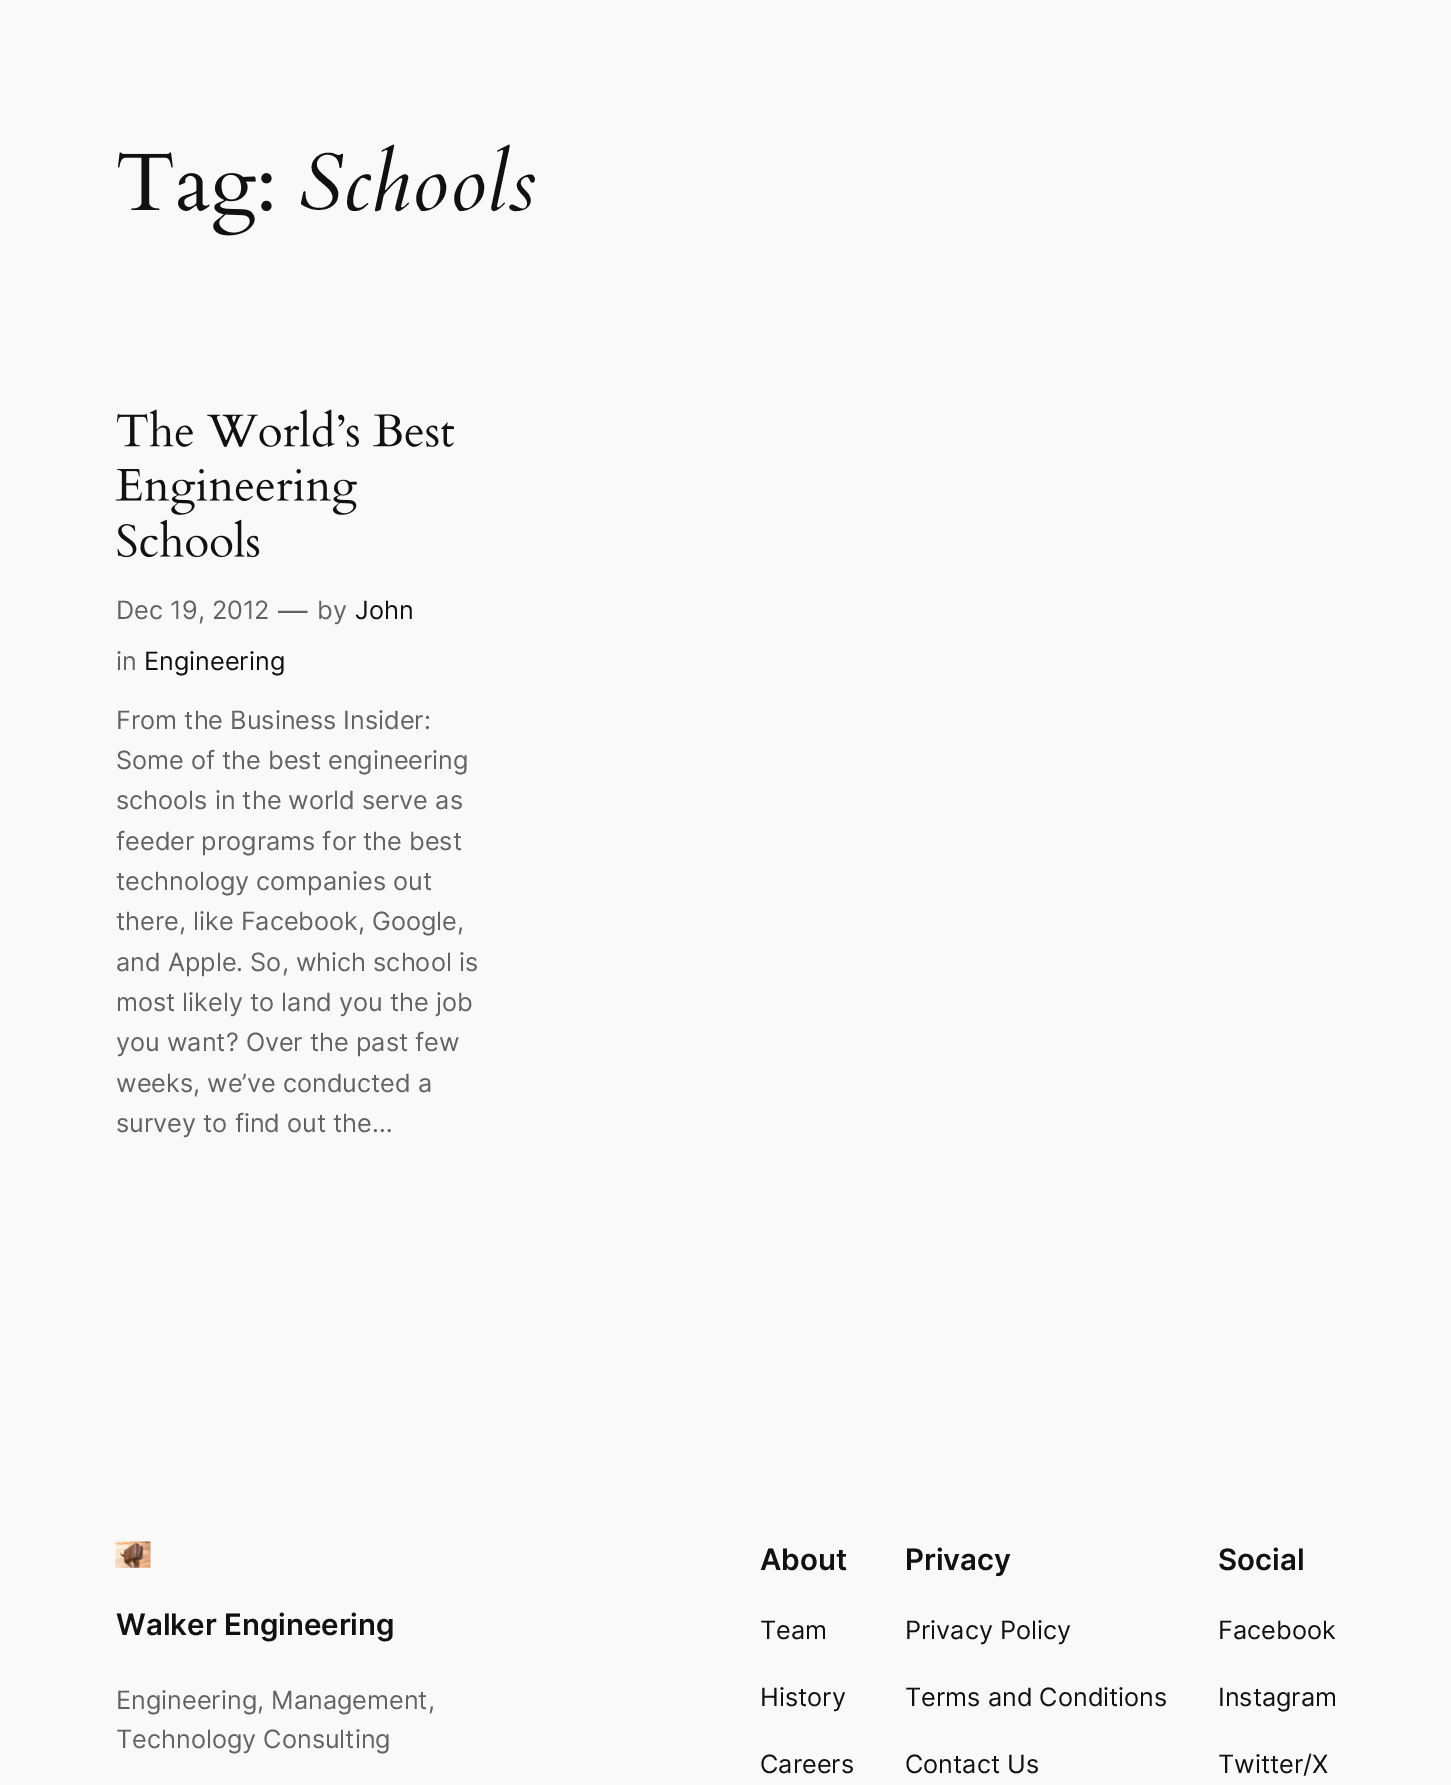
%!PS
<< /PageSize [1451 1785] >> setpagedevice
/picture { 5 dict begin { /h /w /y /x /name } { exch def } forall
  gsave x y translate w h scale
  w h 8 [w 0 0 h 0 0] name (r) file false 3 colorimage grestore end } def
0 1785 translate 1 -1 scale
4 setmiterlimit
0.976 setgray
0 0 1451 1785 rectfill
(img1.rgb) 118 152 154 84 picture
/Cardo-Italic [81.5 0 0 -81.5 0 0] selectfont
0.067 setgray
299 210 moveto (Schools) show
(img2.rgb) 116 409 338 38 picture
(img3.rgb) 115 469 242 46 picture
(img4.rgb) 117 519 143 39 picture
/Inter-Regular [25.25 0 0 -25.25 0 0] selectfont
0.388 setgray
116 619 moveto (Dec 19, 2012) show
/Inter-Regular [29.5 0 0 -29.5 0 0] selectfont
278 621 moveto (—) show
/Inter-Regular [25.25 0 0 -25.25 0 0] selectfont
317 619 moveto (by) show
0.067 setgray
355 619 moveto (John) show
0.388 setgray
116 670 moveto (in) show
0.067 setgray
144 670 moveto (Engineering) show
0.388 setgray
116 729 moveto (From the Business Insider:) show
116 769 moveto (Some of the best engineering) show
116 809 moveto (schools in the world serve as) show
116 850 moveto (feeder programs for the best) show
116 890 moveto (technology companies out) show
116 930 moveto (there, like Facebook, Google,) show
116 971 moveto (and Apple. So, which school is) show
116 1011 moveto (most likely to land you the job) show
116 1051 moveto (you want? Over the past few) show
116 1092 moveto (weeks, we’ve conducted a) show
116 1132 moveto (survey to find out the…) show
(img5.rgb) 115 1541 36 27 picture
/Inter-SemiBold [29.5 0 0 -29.5 0 0] selectfont
0.067 setgray
116 1635 moveto (Walker Engineering) show
/Inter-Regular [25.25 0 0 -25.25 0 0] selectfont
0.388 setgray
116 1709 moveto (Engineering, Management,) show
116 1748 moveto (Technology Consulting) show
/Inter-SemiBold [29.5 0 0 -29.5 0 0] selectfont
0.067 setgray
760 1570 moveto (About) show
/Inter-Regular [25.25 0 0 -25.25 0 0] selectfont
760 1639 moveto (Team) show
760 1706 moveto (History) show
760 1773 moveto (Careers) show
/Inter-SemiBold [29.5 0 0 -29.5 0 0] selectfont
905 1570 moveto (Privacy) show
/Inter-Regular [25.25 0 0 -25.25 0 0] selectfont
905 1639 moveto (Privacy Policy) show
905 1706 moveto (Terms and Conditions) show
905 1773 moveto (Contact Us) show
/Inter-SemiBold [29.5 0 0 -29.5 0 0] selectfont
1218 1570 moveto (Social) show
/Inter-Regular [25.25 0 0 -25.25 0 0] selectfont
1218 1639 moveto (Facebook) show
1218 1706 moveto (Instagram) show
1218 1773 moveto (Twitter/X) show
showpage
